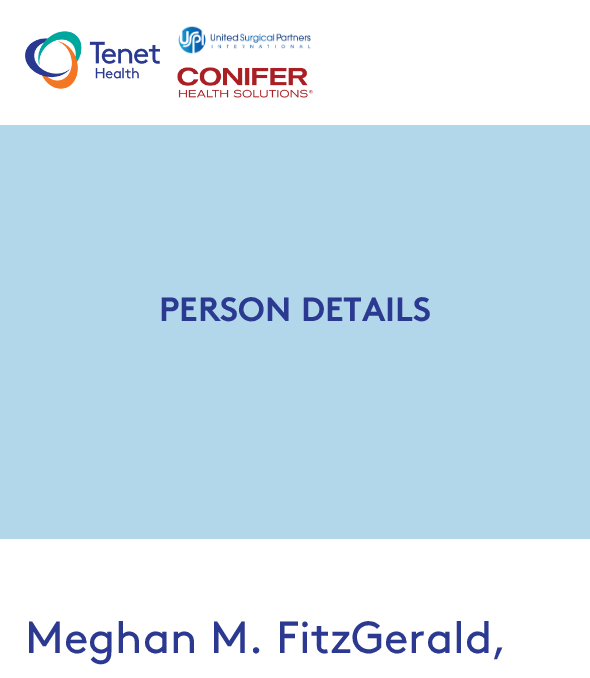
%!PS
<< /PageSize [590 678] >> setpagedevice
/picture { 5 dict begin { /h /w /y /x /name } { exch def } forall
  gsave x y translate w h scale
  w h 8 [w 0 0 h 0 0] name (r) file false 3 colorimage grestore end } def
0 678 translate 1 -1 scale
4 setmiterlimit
1 setgray
0 0 590 678 rectfill
(img1.rgb) 25 31 135 58 picture
(img2.rgb) 178 26 133 28 picture
(img3.rgb) 177 67 136 31 picture
0.698 0.843 0.918 setrgbcolor
0 125 590 414 rectfill
/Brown-Bold [33.75 0 0 -33.75 0 0] selectfont
0.169 0.224 0.565 setrgbcolor
159 321 moveto (PERSON DETAILS) show
/Brown-Regular [45 0 0 -45 0 0] selectfont
25 653 moveto (Meghan M. FitzGerald,) show
showpage
